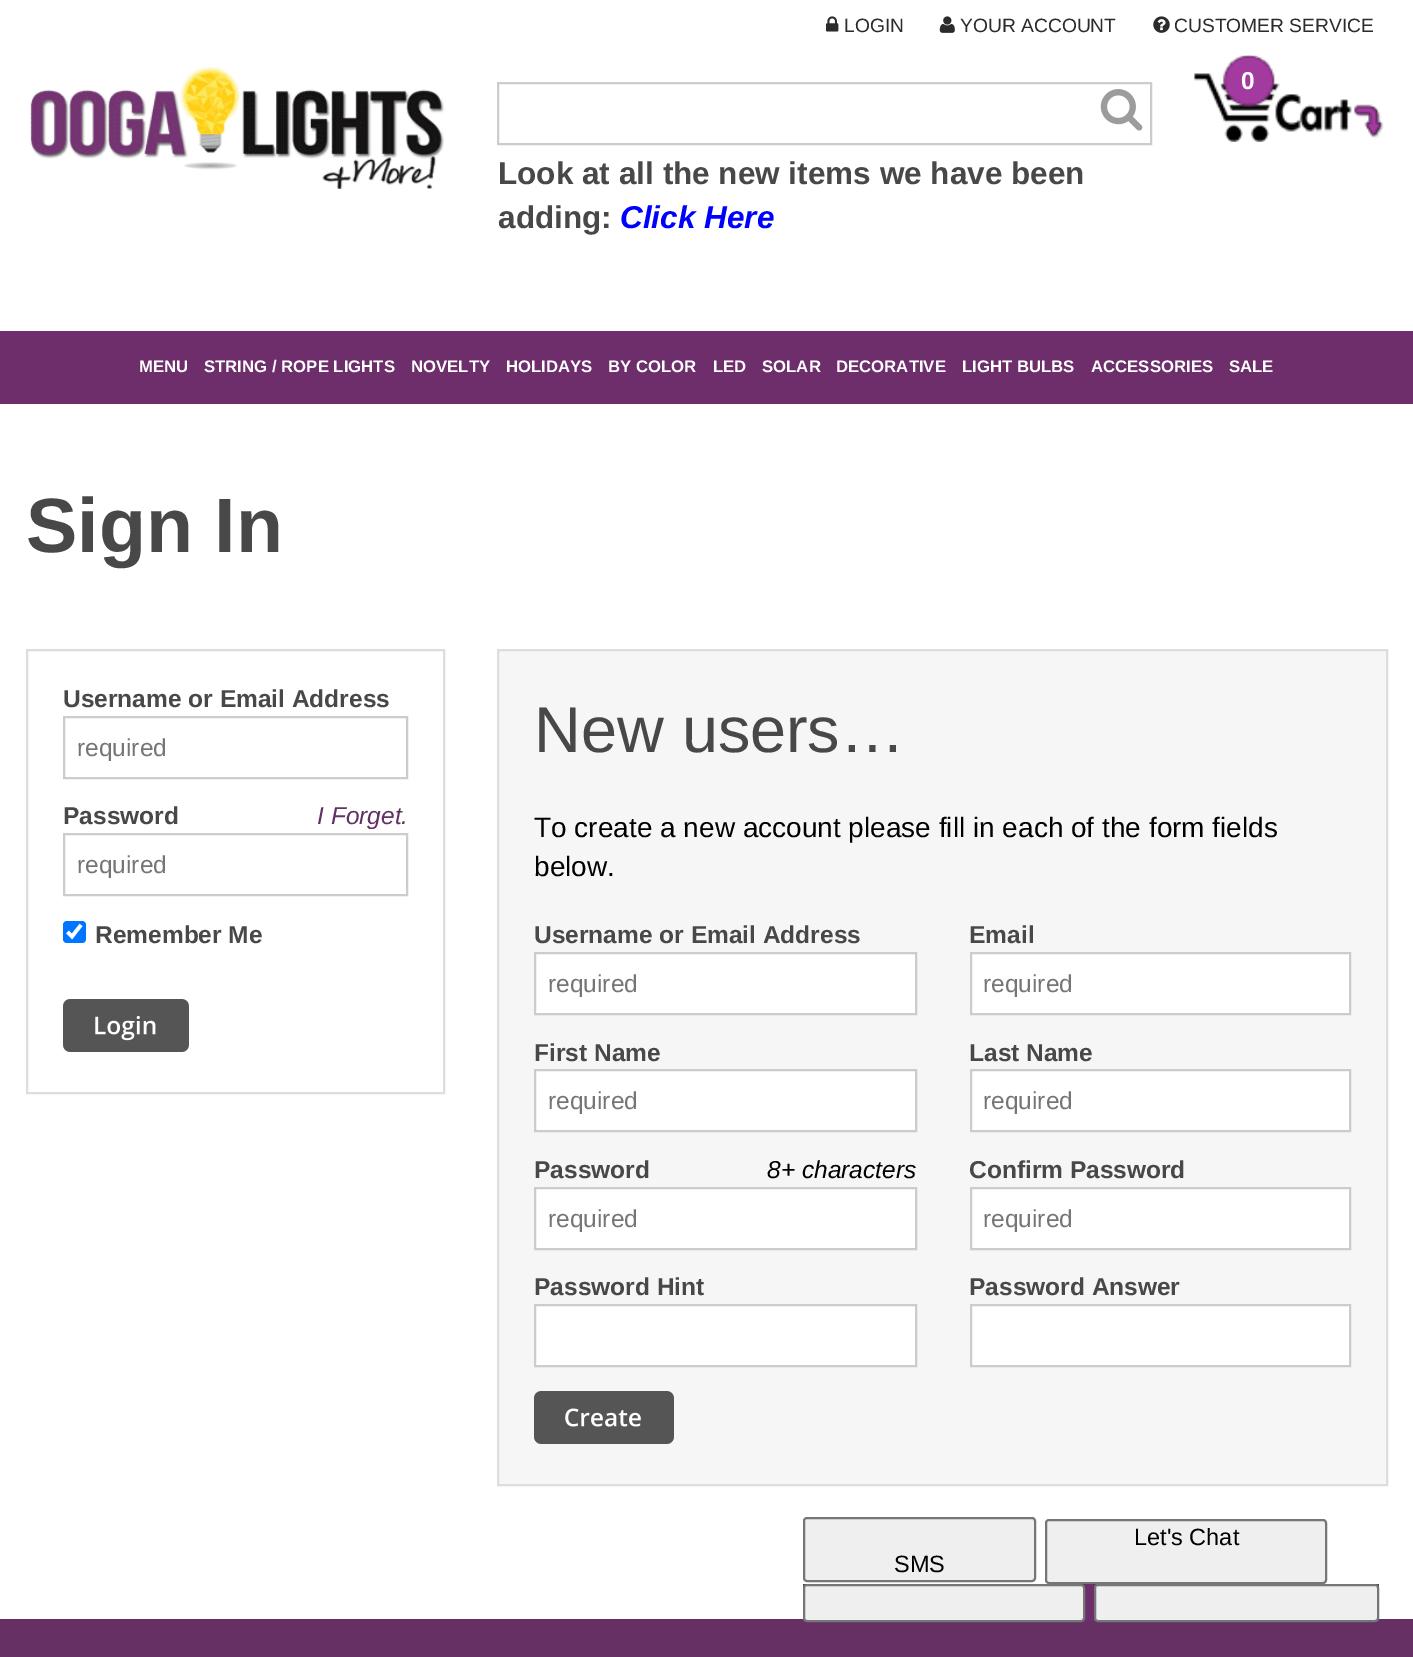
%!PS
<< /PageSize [1413 1657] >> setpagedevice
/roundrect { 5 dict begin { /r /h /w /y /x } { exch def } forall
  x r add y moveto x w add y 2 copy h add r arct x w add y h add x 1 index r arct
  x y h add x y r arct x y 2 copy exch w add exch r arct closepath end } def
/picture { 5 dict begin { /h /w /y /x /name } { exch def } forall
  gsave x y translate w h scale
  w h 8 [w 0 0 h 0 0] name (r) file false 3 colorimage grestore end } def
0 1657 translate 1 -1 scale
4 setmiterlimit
1 setgray
0 0 1413 1657 rectfill
(img1.rgb) 826 16 13 16 picture
/LiberationSans-Regular [19.25 0 0 -19.25 0 0] selectfont
0.169 setgray
844 32 moveto (LOGIN) show
(img2.rgb) 939 16 16 17 picture
960 32 moveto (YOUR ACCOUNT) show
(img3.rgb) 1153 16 17 17 picture
1174 32 moveto (CUSTOMER SERVICE) show
(img4.rgb) 30 66 415 123 picture
(img5.rgb) 1193 54 191 88 picture
1 setgray
2 setlinewidth
1193 54 194 96 8 roundrect stroke
/LiberationSans-Bold [24.5 0 0 -24.5 0 0] selectfont
1241 89 moveto (0) show
0.8 setgray
498 83 653 61 rectstroke
(img6.rgb) 1100 89 43 42 picture
/LiberationSans-Bold [31.5 0 0 -31.5 0 0] selectfont
0.286 0.282 0.286 setrgbcolor
498 184 moveto (Look at all the new items we have been) show
498 228 moveto (adding:) show
/LiberationSans-BoldItalic [31.5 0 0 -31.5 0 0] selectfont
0 0 1 setrgbcolor
620 228 moveto (Click Here) show
0.431 0.176 0.42 setrgbcolor
0 331 1413 73 rectfill
/LiberationSans-Bold [16.75 0 0 -16.75 0 0] selectfont
1 setgray
139 372 moveto (MENU) show
204 372 moveto (STRING / ROPE LIGHTS) show
411 372 moveto (NOVELTY) show
506 372 moveto (HOLIDAYS) show
608 372 moveto (BY COLOR) show
713 372 moveto (LED) show
762 372 moveto (SOLAR) show
836 372 moveto (DECORATIVE) show
962 372 moveto (LIGHT BULBS) show
1091 372 moveto (ACCESSORIES) show
1229 372 moveto (SALE) show
/LiberationSans-Bold [77 0 0 -77 0 0] selectfont
0.286 0.282 0.286 setrgbcolor
26 552 moveto (Sign In) show
0.867 setgray
27 650 417 443 rectstroke
/LiberationSans-Bold [24.5 0 0 -24.5 0 0] selectfont
0.286 0.282 0.286 setrgbcolor
63 707 moveto (Username or Email Address) show
0.8 setgray
64 717 343 61 rectstroke
/LiberationSans-Regular [24.5 0 0 -24.5 0 0] selectfont
0.459 setgray
77 756 moveto (required) show
/LiberationSans-Bold [24.5 0 0 -24.5 0 0] selectfont
0.286 0.282 0.286 setrgbcolor
63 824 moveto (Password) show
/LiberationSans-Italic [24.5 0 0 -24.5 0 0] selectfont
0.388 0.188 0.396 setrgbcolor
317 824 moveto (I Forget.) show
0.8 setgray
64 834 343 61 rectstroke
/LiberationSans-Regular [24.5 0 0 -24.5 0 0] selectfont
0.459 setgray
77 873 moveto (required) show
0 0.459 1 setrgbcolor
63 921 23 22 4 roundrect fill
1 setgray
3.6 setlinewidth
newpath 67.5 932 moveto 72 936.5 lineto 81 925 lineto stroke
/LiberationSans-Bold [24.5 0 0 -24.5 0 0] selectfont
0.286 0.282 0.286 setrgbcolor
95 943 moveto (Remember Me) show
(img7.rgb) 63 999 126 53 picture
0.965 setgray
newpath 498 650 moveto 1387 650 lineto 1387 1485 lineto 498 1485 lineto closepath gsave fill grestore
0.867 setgray
2 setlinewidth
stroke
/LiberationSans-Regular [64.75 0 0 -64.75 0 0] selectfont
0.286 0.282 0.286 setrgbcolor
534 752 moveto (New users…) show
/LiberationSans-Regular [28 0 0 -28 0 0] selectfont
0 setgray
534 837 moveto (To create a new account please fill in each of the form fields) show
534 876 moveto (below.) show
/LiberationSans-Bold [24.5 0 0 -24.5 0 0] selectfont
0.286 0.282 0.286 setrgbcolor
534 943 moveto (Username or Email Address) show
1 setgray
newpath 535 953 moveto 916 953 lineto 916 1014 lineto 535 1014 lineto closepath gsave fill grestore
0.8 setgray
stroke
/LiberationSans-Regular [24.5 0 0 -24.5 0 0] selectfont
0.459 setgray
548 992 moveto (required) show
/LiberationSans-Bold [24.5 0 0 -24.5 0 0] selectfont
0.286 0.282 0.286 setrgbcolor
969 943 moveto (Email) show
1 setgray
newpath 971 953 moveto 1350 953 lineto 1350 1014 lineto 971 1014 lineto closepath gsave fill grestore
0.8 setgray
stroke
/LiberationSans-Regular [24.5 0 0 -24.5 0 0] selectfont
0.459 setgray
983 992 moveto (required) show
/LiberationSans-Bold [24.5 0 0 -24.5 0 0] selectfont
0.286 0.282 0.286 setrgbcolor
534 1061 moveto (First Name) show
1 setgray
newpath 535 1070 moveto 916 1070 lineto 916 1131 lineto 535 1131 lineto closepath gsave fill grestore
0.8 setgray
stroke
/LiberationSans-Regular [24.5 0 0 -24.5 0 0] selectfont
0.459 setgray
548 1109 moveto (required) show
/LiberationSans-Bold [24.5 0 0 -24.5 0 0] selectfont
0.286 0.282 0.286 setrgbcolor
969 1061 moveto (Last Name) show
1 setgray
newpath 971 1070 moveto 1350 1070 lineto 1350 1131 lineto 971 1131 lineto closepath gsave fill grestore
0.8 setgray
stroke
/LiberationSans-Regular [24.5 0 0 -24.5 0 0] selectfont
0.459 setgray
983 1109 moveto (required) show
/LiberationSans-Bold [24.5 0 0 -24.5 0 0] selectfont
0.286 0.282 0.286 setrgbcolor
534 1178 moveto (Password) show
/LiberationSans-Italic [24.5 0 0 -24.5 0 0] selectfont
0 setgray
767 1178 moveto (8+ characters) show
1 setgray
newpath 535 1188 moveto 916 1188 lineto 916 1249 lineto 535 1249 lineto closepath gsave fill grestore
0.8 setgray
stroke
/LiberationSans-Regular [24.5 0 0 -24.5 0 0] selectfont
0.459 setgray
548 1227 moveto (required) show
/LiberationSans-Bold [24.5 0 0 -24.5 0 0] selectfont
0.286 0.282 0.286 setrgbcolor
969 1178 moveto (Confirm Password) show
1 setgray
newpath 971 1188 moveto 1350 1188 lineto 1350 1249 lineto 971 1249 lineto closepath gsave fill grestore
0.8 setgray
stroke
/LiberationSans-Regular [24.5 0 0 -24.5 0 0] selectfont
0.459 setgray
983 1227 moveto (required) show
/LiberationSans-Bold [24.5 0 0 -24.5 0 0] selectfont
0.286 0.282 0.286 setrgbcolor
534 1295 moveto (Password Hint) show
1 setgray
newpath 535 1305 moveto 916 1305 lineto 916 1366 lineto 535 1366 lineto closepath gsave fill grestore
0.8 setgray
stroke
0.286 0.282 0.286 setrgbcolor
969 1295 moveto (Password Answer) show
1 setgray
newpath 971 1305 moveto 1350 1305 lineto 1350 1366 lineto 971 1366 lineto closepath gsave fill grestore
0.8 setgray
stroke
(img8.rgb) 534 1391 140 53 picture
0.4 0.188 0.392 setrgbcolor
0 1619 1413 38 rectfill
0.937 setgray
1046 1520 280 63 3 roundrect gsave fill grestore
0.463 setgray
stroke
/LiberationSans-Regular [23.5 0 0 -23.5 0 0] selectfont
0 setgray
1134 1545 moveto (Let's Chat) show
0.937 setgray
804 1518 231 63 3 roundrect gsave fill grestore
0.463 setgray
stroke
0 setgray
894 1572 moveto (SMS) show
0.431 0.176 0.42 setrgbcolor
803 1584 576 38 rectfill
0.937 setgray
804 1585 280 36 3 roundrect gsave fill grestore
0.463 setgray
stroke
0.937 setgray
1095 1585 283 36 3 roundrect gsave fill grestore
0.463 setgray
stroke
showpage
